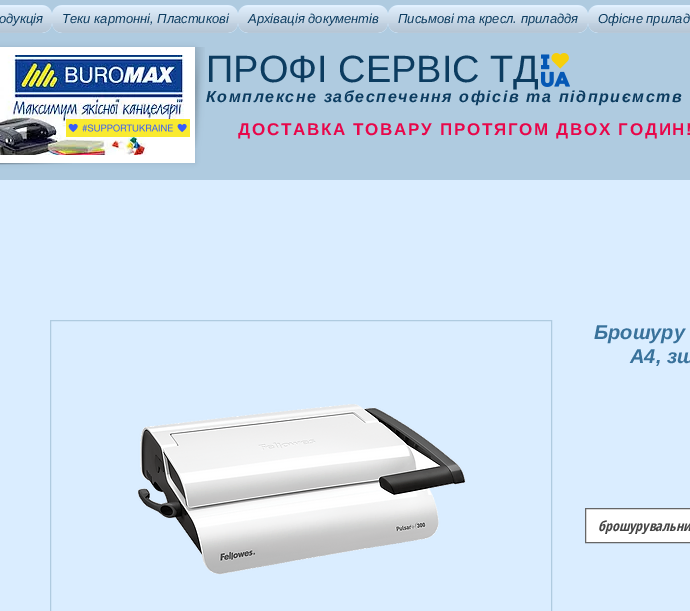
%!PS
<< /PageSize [690 611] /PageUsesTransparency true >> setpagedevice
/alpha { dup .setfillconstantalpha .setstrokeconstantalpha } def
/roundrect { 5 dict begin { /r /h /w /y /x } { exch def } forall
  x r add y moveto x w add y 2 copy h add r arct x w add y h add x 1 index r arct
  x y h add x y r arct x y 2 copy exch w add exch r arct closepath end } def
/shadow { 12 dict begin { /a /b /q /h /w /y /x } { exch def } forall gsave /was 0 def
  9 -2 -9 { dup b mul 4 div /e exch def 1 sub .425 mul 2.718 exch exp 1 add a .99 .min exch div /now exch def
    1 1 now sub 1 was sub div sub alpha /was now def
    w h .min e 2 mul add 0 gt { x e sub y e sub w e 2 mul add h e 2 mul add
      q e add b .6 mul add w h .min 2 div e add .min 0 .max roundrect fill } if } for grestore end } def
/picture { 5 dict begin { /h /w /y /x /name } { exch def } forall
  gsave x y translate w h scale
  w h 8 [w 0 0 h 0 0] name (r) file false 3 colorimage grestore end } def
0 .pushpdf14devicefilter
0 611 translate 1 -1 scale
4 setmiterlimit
0.855 0.929 1 setrgbcolor
0 0 690 611 rectfill
0.686 0.796 0.878 setrgbcolor
0 0 690 180 rectfill
0.855 0.929 1 setrgbcolor
-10 5 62 28 10 roundrect fill
(img1.rgb) 0 5 52 18 picture
(img2.rgb) 0 7 52 26 picture
/LiberationSans-Italic [13 0 0 -13 0 0] selectfont
0.047 0.235 0.376 setrgbcolor
-1 23 moveto (одукція) show
0.855 0.929 1 setrgbcolor
52 5 186 28 10 roundrect fill
(img3.rgb) 52 5 186 18 picture
(img4.rgb) 52 7 186 26 picture
0.047 0.235 0.376 setrgbcolor
62 23 moveto (Теки картонні, Пластикові) show
0.855 0.929 1 setrgbcolor
238 5 150 28 10 roundrect fill
(img5.rgb) 238 5 150 18 picture
(img6.rgb) 238 7 150 26 picture
0.047 0.235 0.376 setrgbcolor
248 23 moveto (Архівація документів) show
0.855 0.929 1 setrgbcolor
388 5 200 28 10 roundrect fill
(img7.rgb) 388 5 200 18 picture
(img8.rgb) 388 7 200 26 picture
0.047 0.235 0.376 setrgbcolor
398 23 moveto (Письмові та кресл. приладдя) show
0.855 0.929 1 setrgbcolor
588 5 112 28 10 roundrect fill
(img9.rgb) 588 5 102 18 picture
(img10.rgb) 588 7 102 26 picture
0.047 0.235 0.376 setrgbcolor
598 23 moveto (Офісне прилад) show
0 setgray
-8 47 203 116 0 2.5 0.1 shadow
1 setgray
0 47 195 116 rectfill
(img11.rgb) 0 55 184 100 picture
(img12.rgb) 0 163 72 2 picture
(img13.rgb) 195 47 10 101 picture
/LiberationSans-Regular [38 0 0 -38 0 0] selectfont
0.047 0.235 0.376 setrgbcolor
206 82 moveto (ПРОФІ СЕРВІС ТД) show
(img14.rgb) 541 53 29 34 picture
(img15.rgb) 66 119 124 18 picture
/LiberationSans-BoldItalic [16 0 0 -16 0 0] selectfont
206 102 moveto 1.6 0 (Комплексне забеспечення офісів та підприємств) ashow
/LiberationSans-Bold [17 0 0 -17 0 0] selectfont
0.91 0.027 0.29 setrgbcolor
238 135 moveto 1.7 0 (ДОСТАВКА ТОВАРУ ПРОТЯГОМ ДВОХ ГОДИН!) ashow
0.686 0.796 0.878 setrgbcolor
50.5 320.5 501 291 rectstroke
(img16.rgb) 137 404 329 171 picture
/LiberationSans-BoldItalic [20 0 0 -20 0 0] selectfont
0.224 0.447 0.608 setrgbcolor
594 339 moveto (Брошуру) show
630 363 moveto (А4, зш) show
1 setgray
newpath 585.5 508.5 moveto 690.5 508.5 lineto 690.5 542.5 lineto 585.5 542.5 lineto closepath gsave fill grestore
0.4 setgray
stroke
gsave
598 517 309 17 rectclip
/OpenSansCondensed-BoldItalic [14 0 0 -14 0 0] selectfont
0.267 setgray
598 531 moveto (брошурувальни) show
grestore
.poppdf14devicefilter showpage
